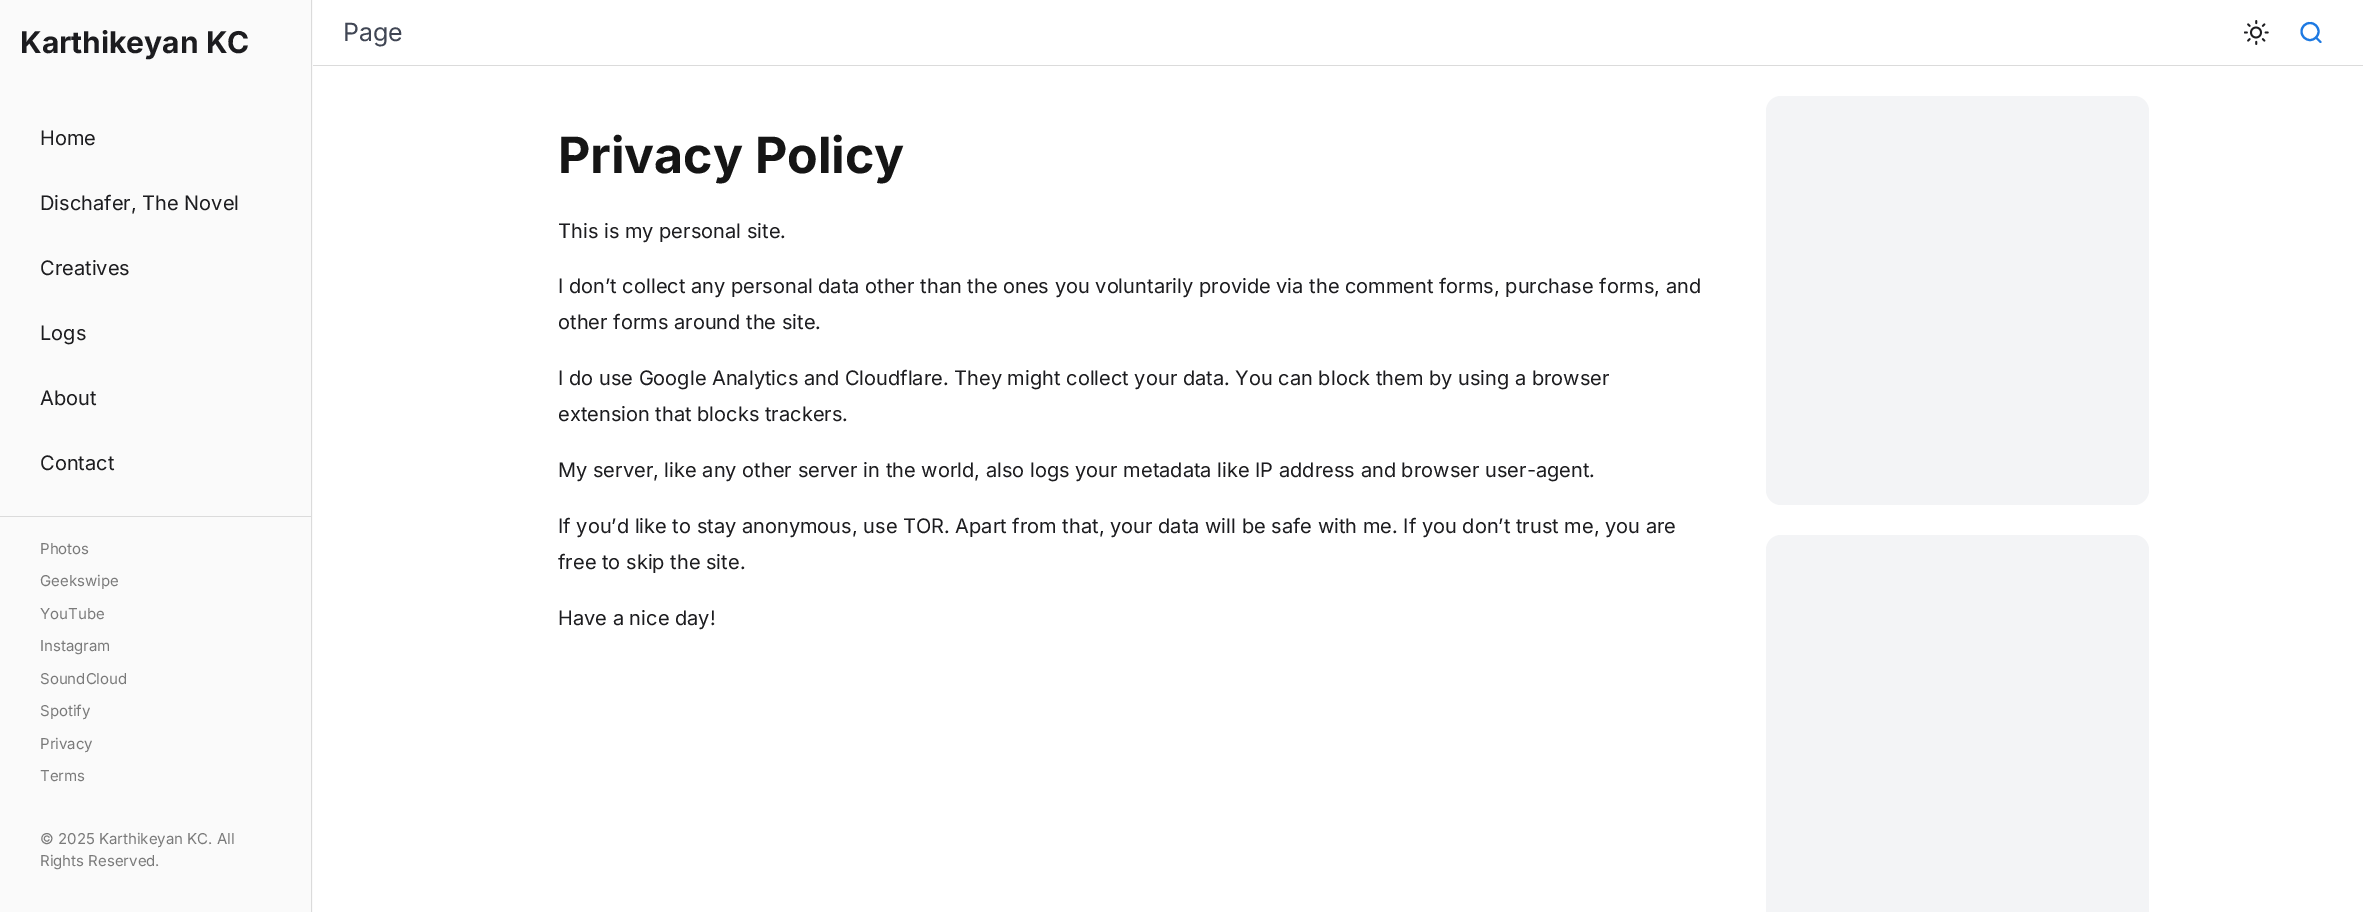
%!PS
<< /PageSize [2363 912] >> setpagedevice
/roundrect { 5 dict begin { /r /h /w /y /x } { exch def } forall
  x r add y moveto x w add y 2 copy h add r arct x w add y h add x 1 index r arct
  x y h add x y r arct x y 2 copy exch w add exch r arct closepath end } def
/picture { 5 dict begin { /h /w /y /x /name } { exch def } forall
  gsave x y translate w h scale
  w h 8 [w 0 0 h 0 0] name (r) file false 3 colorimage grestore end } def
0 912 translate 1 -1 scale
4 setmiterlimit
1 setgray
0 0 2363 912 rectfill
0.98 setgray
0 0 313 912 rectfill
0.859 setgray
311 0 1 912 rectfill
/Inter-Bold [30 0 0 -30 0 0] selectfont
0.11 0.11 0.122 setrgbcolor
20 53 moveto (Karthikeyan KC) show
/Inter-Regular [20 0 0 -20 0 0] selectfont
40 145 moveto (Home) show
40 210 moveto (Dischafer, The Novel) show
40 275 moveto (Creatives) show
40 340 moveto (Logs) show
40 405 moveto (About) show
40 470 moveto (Contact) show
0.859 setgray
0 516 311 1 rectfill
/Inter-Regular [15 0 0 -15 0 0] selectfont
0.478 setgray
40 554 moveto (Photos) show
40 586 moveto (Geekswipe) show
40 619 moveto (YouTube) show
40 651 moveto (Instagram) show
40 684 moveto (SoundCloud) show
40 716 moveto (Spotify) show
40 749 moveto (Privacy) show
40 781 moveto (Terms) show
40 844 moveto (© 2025 Karthikeyan KC. All) show
40 866 moveto (Rights Reserved.) show
0.859 setgray
313 65 2050 1 rectfill
/Inter-Regular [25 0 0 -25 0 0] selectfont
0.251 0.275 0.329 setrgbcolor
343 41 moveto (Page) show
(img1.rgb) 2244 20 25 25 picture
0.114 0.475 0.886 setrgbcolor
2.1 setlinewidth
newpath 2310 31.5 8.5 0 360 arc closepath stroke
1 setlinecap
1 setlinejoin
newpath 2320.5 42 moveto 2316 37.5 lineto stroke
/Inter-Bold [50 0 0 -50 0 0] selectfont
0.082 setgray
558 173 moveto (Privacy Policy) show
/Inter-Regular [20 0 0 -20 0 0] selectfont
0.11 0.11 0.122 setrgbcolor
558 238 moveto (This is my personal site.) show
558 293 moveto (I don’t collect any personal data other than the ones you voluntarily provide via the comment forms, purchase forms, and) show
558 329 moveto (other forms around the site.) show
558 385 moveto (I do use Google Analytics and Cloudflare. They might collect your data. You can block them by using a browser) show
558 421 moveto (extension that blocks trackers.) show
558 477 moveto (My server, like any other server in the world, also logs your metadata like IP address and browser user-agent.) show
558 533 moveto (If you’d like to stay anonymous, use TOR. Apart from that, your data will be safe with me. If you don’t trust me, you are) show
558 569 moveto (free to skip the site.) show
558 625 moveto (Have a nice day!) show
0.953 0.957 0.965 setrgbcolor
1766 96 383 409 15 roundrect fill
1766 535 383 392 15 roundrect fill
showpage
